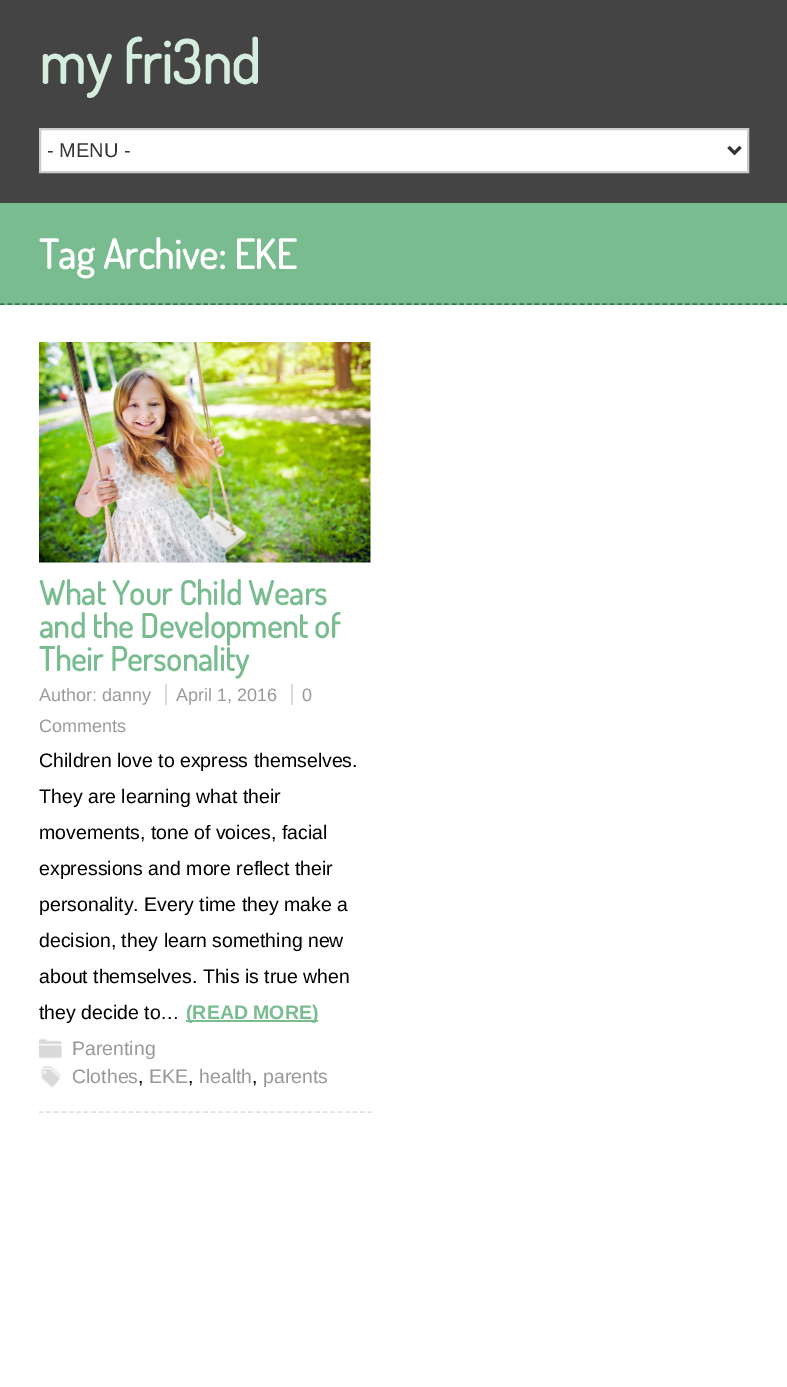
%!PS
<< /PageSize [787 1387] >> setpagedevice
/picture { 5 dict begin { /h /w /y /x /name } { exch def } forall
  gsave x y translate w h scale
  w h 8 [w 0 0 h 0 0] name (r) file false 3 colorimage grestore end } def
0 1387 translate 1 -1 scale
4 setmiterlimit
1 setgray
0 0 787 1387 rectfill
0.267 setgray
0 0 787 203 rectfill
/Dosis-Bold [60 0 0 -60 0 0] selectfont
0.835 0.929 0.871 setrgbcolor
39 84 moveto (my fri3nd) show
1 setgray
newpath 40 129 moveto 748 129 lineto 748 172 lineto 40 172 lineto closepath gsave fill grestore
0.8 setgray
2 setlinewidth
stroke
0.2 setgray
3 setlinewidth
newpath 728.5 147 moveto 734.5 153 lineto 740.5 147 lineto stroke
/LiberationSans-Regular [20 0 0 -20 0 0] selectfont
47 157 moveto (- MENU -) show
0.475 0.737 0.565 setrgbcolor
0 203 787 102 rectfill
0.165 0.502 0.278 setrgbcolor
1.5 setlinewidth
[4.5 3.03] 0 setdash
newpath 0 304 moveto 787.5 304 lineto stroke
/Dosis-Bold [40.5 0 0 -40.5 0 0] selectfont
1 setgray
39 269 moveto (Tag Archive: EKE) show
0.89 setgray
[4.5 2.97] 0 setdash
newpath 39 1112 moveto 372 1112 lineto stroke
(img1.rgb) 39 342 332 221 picture
/Dosis-Bold [33 0 0 -33 0 0] selectfont
0.475 0.737 0.565 setrgbcolor
39 605 moveto (What Your Child Wears) show
39 638 moveto (and the Development of) show
39 671 moveto (Their Personality) show
/LiberationSans-Regular [18 0 0 -18 0 0] selectfont
0.6 setgray
39 701 moveto (Author: danny) show
176 701 moveto (April 1, 2016) show
0.859 setgray
165 684 2 21 rectfill
0.6 setgray
302 701 moveto (0) show
0.859 setgray
291 684 2 21 rectfill
0.6 setgray
39 732 moveto (Comments) show
/LiberationSans-Regular [19.5 0 0 -19.5 0 0] selectfont
0 setgray
39 767 moveto (Children love to express themselves.) show
39 803 moveto (They are learning what their) show
39 839 moveto (movements, tone of voices, facial) show
39 875 moveto (expressions and more reflect their) show
39 911 moveto (personality. Every time they make a) show
39 947 moveto (decision, they learn something new) show
39 983 moveto (about themselves. This is true when) show
39 1019 moveto (they decide to…) show
0.475 0.737 0.565 setrgbcolor
186 1020 132 2 rectfill
/LiberationSans-Bold [19.5 0 0 -19.5 0 0] selectfont
186 1019 moveto (\(READ MORE\)) show
(img2.rgb) 39 1038 23 21 picture
/LiberationSans-Regular [19.5 0 0 -19.5 0 0] selectfont
0.6 setgray
72 1055 moveto (Parenting) show
(img3.rgb) 40 1066 21 22 picture
72 1083 moveto (Clothes) show
0 setgray
138 1083 moveto (,) show
0.6 setgray
149 1083 moveto (EKE) show
0 setgray
188 1083 moveto (,) show
0.6 setgray
199 1083 moveto (health) show
0 setgray
252 1083 moveto (,) show
0.6 setgray
263 1083 moveto (parents) show
showpage
